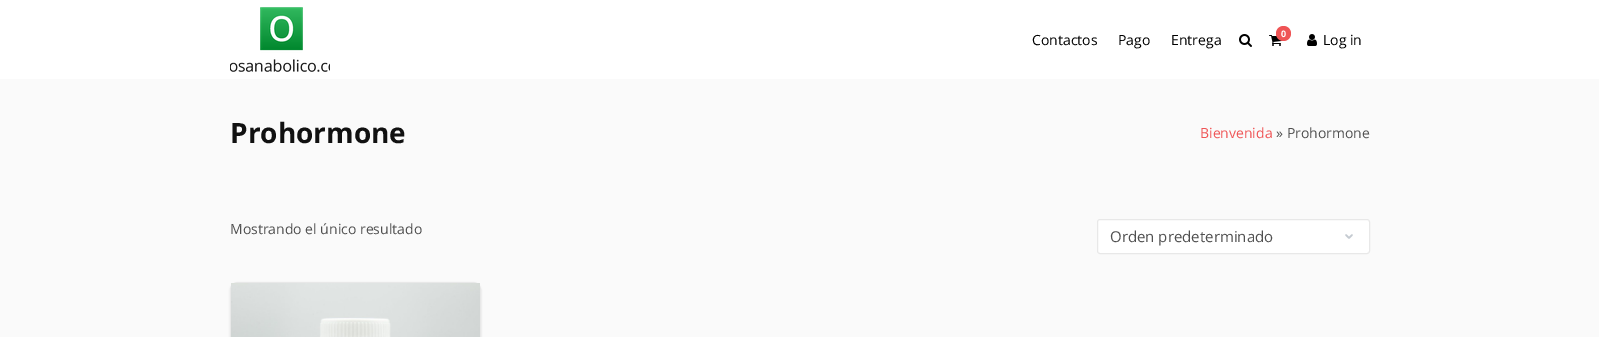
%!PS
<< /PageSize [1599 337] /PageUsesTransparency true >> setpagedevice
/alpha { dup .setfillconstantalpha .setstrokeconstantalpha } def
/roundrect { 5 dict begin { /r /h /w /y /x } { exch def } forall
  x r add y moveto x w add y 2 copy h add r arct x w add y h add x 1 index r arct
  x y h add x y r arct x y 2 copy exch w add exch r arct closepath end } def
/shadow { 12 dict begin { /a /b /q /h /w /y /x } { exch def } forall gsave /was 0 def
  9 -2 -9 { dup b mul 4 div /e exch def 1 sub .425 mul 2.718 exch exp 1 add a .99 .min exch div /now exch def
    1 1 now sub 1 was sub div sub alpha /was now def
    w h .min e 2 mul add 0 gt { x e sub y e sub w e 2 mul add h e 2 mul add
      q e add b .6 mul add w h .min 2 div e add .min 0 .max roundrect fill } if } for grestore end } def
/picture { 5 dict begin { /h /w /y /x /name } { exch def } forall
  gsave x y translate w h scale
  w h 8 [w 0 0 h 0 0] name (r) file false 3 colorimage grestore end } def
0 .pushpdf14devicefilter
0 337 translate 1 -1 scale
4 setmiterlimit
0.98 setgray
0 0 1599 337 rectfill
1 setgray
0 0 1599 79 rectfill
(img1.rgb) 230 7 100 65 picture
/OpenSans-Regular [14 0 0 -14 0 0] selectfont
0 setgray
1032 45 moveto (Contactos) show
1118 45 moveto (Pago) show
1171 45 moveto (Entrega) show
(img2.rgb) 1239 34 13 13 picture
(img3.rgb) 1269 35 13 11 picture
0.937 0.329 0.333 setrgbcolor
newpath 1283.5 33.5 7.5 0 360 arc closepath fill
/OpenSans-Bold [9 0 0 -9 0 0] selectfont
1 setgray
1281 37 moveto (0) show
(img4.rgb) 1307 34 10 12 picture
/OpenSans-Regular [14 0 0 -14 0 0] selectfont
0 setgray
1323 45 moveto (Log in) show
/OpenSans-Bold [28 0 0 -28 0 0] selectfont
0.067 setgray
230 143 moveto (Prohormone) show
/OpenSans-Regular [14 0 0 -14 0 0] selectfont
0.937 0.329 0.333 setrgbcolor
1200 138 moveto (Bienvenida) show
0.314 setgray
1276 138 moveto (» Prohormone) show
230 234 moveto (Mostrando el único resultado) show
1 setgray
1097 219 273 35 3 roundrect fill
0.769 0.792 0.82 setrgbcolor
1.5 setlinewidth
1 setlinecap
1 setlinejoin
newpath 1352 235 moveto 1349 238 lineto 1346 235 lineto stroke
0.91 setgray
1 setlinewidth
0 setlinecap
0 setlinejoin
1097.5 219.5 272 34 2.5 roundrect stroke
/OpenSans-Regular [15 0 0 -15 0 0] selectfont
0.314 setgray
1110 242 moveto (Orden predeterminado) show
0 setgray
230 283 251 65 8 1 0.1 shadow
0.91 setgray
230.5 282.5 250 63 7.5 roundrect stroke
(img5.rgb) 231 283 249 54 picture
.poppdf14devicefilter showpage
